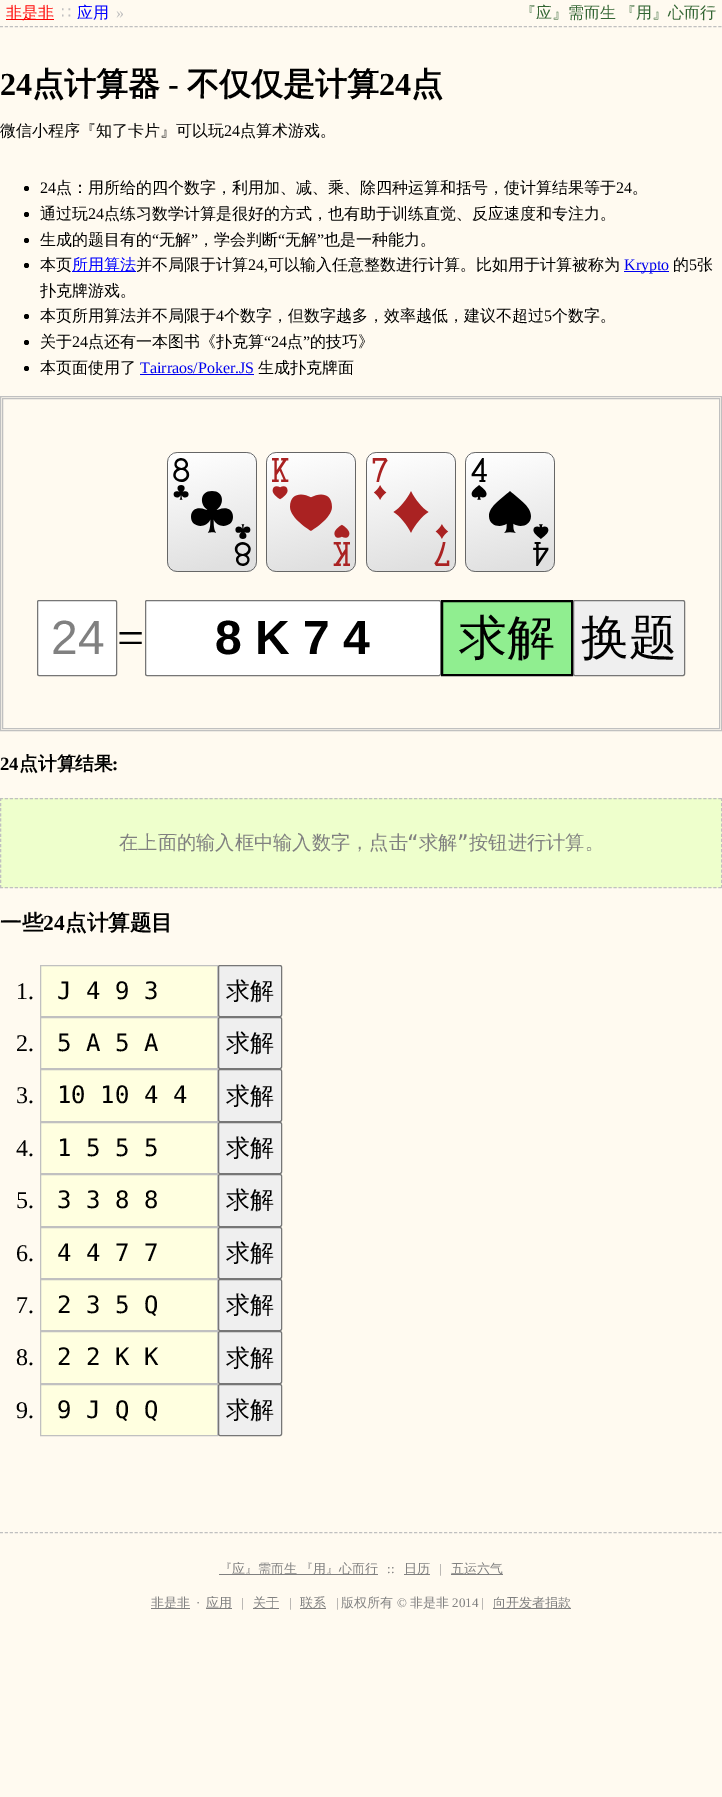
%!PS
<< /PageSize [722 1797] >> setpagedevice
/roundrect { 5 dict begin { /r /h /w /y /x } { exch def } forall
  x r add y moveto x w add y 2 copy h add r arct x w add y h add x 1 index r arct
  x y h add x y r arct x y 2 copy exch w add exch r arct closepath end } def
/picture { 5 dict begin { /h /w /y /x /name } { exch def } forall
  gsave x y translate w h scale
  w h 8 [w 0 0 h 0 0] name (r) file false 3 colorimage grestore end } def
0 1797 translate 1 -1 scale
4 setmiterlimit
1 0.98 0.941 setrgbcolor
0 0 722 1797 rectfill
0.753 setgray
[3 1.99] 0 setdash
newpath 0 26.5 moveto 722 26.5 lineto stroke
1 0 0 setrgbcolor
6 19 48 1 rectfill
/WenQuanYiZenHei-Medium [16 0 0 -16 0 0] selectfont
6 18 moveto (非是非) show
/DejaVuSans-Regular [16 0 0 -16 0 0] selectfont
0.753 setgray
61 18 moveto (∷) show
/WenQuanYiZenHei-Medium [16 0 0 -16 0 0] selectfont
0 0 1 setrgbcolor
77 18 moveto (应用) show
/LiberationSerif-Regular [16 0 0 -16 0 0] selectfont
0.753 setgray
116 18 moveto (») show
/WenQuanYiZenHei-Medium [16 0 0 -16 0 0] selectfont
0.2 0.4 0.2 setrgbcolor
520 18 moveto -1 0 32 (『应』需而生 『用』心而行) widthshow
/LiberationSerif-Bold [32 0 0 -32 0 0] selectfont
0 setgray
0 95 moveto (24) show
/WenQuanYiZenHei-Bold [32 0 0 -32 0 0] selectfont
32 95 moveto (点计算器) show
/LiberationSerif-Bold [32 0 0 -32 0 0] selectfont
168 95 moveto (-) show
/WenQuanYiZenHei-Bold [32 0 0 -32 0 0] selectfont
187 95 moveto (不仅仅是计算) show
/LiberationSerif-Bold [32 0 0 -32 0 0] selectfont
379 95 moveto (24) show
/WenQuanYiZenHei-Bold [32 0 0 -32 0 0] selectfont
411 95 moveto (点) show
/WenQuanYiZenHei-Medium [16 0 0 -16 0 0] selectfont
0 136 moveto (微信小程序『知了卡片』可以玩) show
/LiberationSerif-Regular [16 0 0 -16 0 0] selectfont
224 136 moveto (24) show
/WenQuanYiZenHei-Medium [16 0 0 -16 0 0] selectfont
240 136 moveto (点算术游戏。) show
newpath 26.5 188.5 2.5 0 360 arc closepath fill
/LiberationSerif-Regular [16 0 0 -16 0 0] selectfont
40 193 moveto (24) show
/WenQuanYiZenHei-Medium [16 0 0 -16 0 0] selectfont
56 193 moveto (点：用所给的四个数字，利用加、减、乘、除四种运算和括号，使计算结果等于) show
/LiberationSerif-Regular [16 0 0 -16 0 0] selectfont
616 193 moveto (24) show
/WenQuanYiZenHei-Medium [16 0 0 -16 0 0] selectfont
632 193 moveto (。) show
newpath 26.5 214.5 2.5 0 360 arc closepath fill
40 219 moveto (通过玩) show
/LiberationSerif-Regular [16 0 0 -16 0 0] selectfont
88 219 moveto (24) show
/WenQuanYiZenHei-Medium [16 0 0 -16 0 0] selectfont
104 219 moveto (点练习数学计算是很好的方式，也有助于训练直觉、反应速度和专注力。) show
40 245 moveto (生成的题目有的) show
/LiberationSerif-Regular [16 0 0 -16 0 0] selectfont
152 245 moveto (“) show
/WenQuanYiZenHei-Medium [16 0 0 -16 0 0] selectfont
159 245 moveto (无解) show
/LiberationSerif-Regular [16 0 0 -16 0 0] selectfont
191 245 moveto (”) show
/WenQuanYiZenHei-Medium [16 0 0 -16 0 0] selectfont
198 245 moveto (，学会判断) show
/LiberationSerif-Regular [16 0 0 -16 0 0] selectfont
278 245 moveto (“) show
/WenQuanYiZenHei-Medium [16 0 0 -16 0 0] selectfont
285 245 moveto (无解) show
/LiberationSerif-Regular [16 0 0 -16 0 0] selectfont
317 245 moveto (”) show
/WenQuanYiZenHei-Medium [16 0 0 -16 0 0] selectfont
324 245 moveto (也是一种能力。) show
newpath 26.5 240.5 2.5 0 360 arc closepath fill
newpath 26.5 265.5 2.5 0 360 arc closepath fill
40 270 moveto (本页) show
0 0 1 setrgbcolor
72 271 64 1 rectfill
72 270 moveto (所用算法) show
0 setgray
136 270 moveto (并不局限于计算) show
/LiberationSerif-Regular [16 0 0 -16 0 0] selectfont
248 270 moveto (24,) show
/WenQuanYiZenHei-Medium [16 0 0 -16 0 0] selectfont
268 270 moveto (可以输入任意整数进行计算。比如用于计算被称为) show
0 0 0.933 setrgbcolor
624 271 45 1 rectfill
/LiberationSerif-Regular [16 0 0 -16 0 0] selectfont
624 270 moveto (Krypto) show
/WenQuanYiZenHei-Medium [16 0 0 -16 0 0] selectfont
0 setgray
673 270 moveto (的) show
/LiberationSerif-Regular [16 0 0 -16 0 0] selectfont
689 270 moveto (5) show
/WenQuanYiZenHei-Medium [16 0 0 -16 0 0] selectfont
697 270 moveto (张) show
40 296 moveto (扑克牌游戏。) show
newpath 26.5 316.5 2.5 0 360 arc closepath fill
40 321 moveto (本页所用算法并不局限于) show
/LiberationSerif-Regular [16 0 0 -16 0 0] selectfont
216 321 moveto (4) show
/WenQuanYiZenHei-Medium [16 0 0 -16 0 0] selectfont
224 321 moveto (个数字，但数字越多，效率越低，建议不超过) show
/LiberationSerif-Regular [16 0 0 -16 0 0] selectfont
544 321 moveto (5) show
/WenQuanYiZenHei-Medium [16 0 0 -16 0 0] selectfont
552 321 moveto (个数字。) show
40 347 moveto (关于) show
/LiberationSerif-Regular [16 0 0 -16 0 0] selectfont
72 347 moveto (24) show
/WenQuanYiZenHei-Medium [16 0 0 -16 0 0] selectfont
88 347 moveto (点还有一本图书《扑克算) show
/LiberationSerif-Regular [16 0 0 -16 0 0] selectfont
264 347 moveto (“24) show
/WenQuanYiZenHei-Medium [16 0 0 -16 0 0] selectfont
287 347 moveto (点) show
/LiberationSerif-Regular [16 0 0 -16 0 0] selectfont
303 347 moveto (”) show
/WenQuanYiZenHei-Medium [16 0 0 -16 0 0] selectfont
310 347 moveto (的技巧》) show
newpath 26.5 342.5 2.5 0 360 arc closepath fill
newpath 26.5 368.5 2.5 0 360 arc closepath fill
40 373 moveto (本页面使用了) show
/LiberationSerif-Regular [16 0 0 -16 0 0] selectfont
0 0 0.933 setrgbcolor
140 373 moveto (Tairraos/Poker.JS) show
140 374 114 1 rectfill
/WenQuanYiZenHei-Medium [16 0 0 -16 0 0] selectfont
0 setgray
258 373 moveto (生成扑克牌面) show
0.753 setgray
[] 0 setdash
0.5 396.5 721 334 rectstroke
2.5 398.5 717 330 rectstroke
(img1.rgb) 167 452 90 120 picture
(img2.rgb) 266 452 90 120 picture
(img3.rgb) 366 452 90 120 picture
(img4.rgb) 465 452 90 120 picture
1 setgray
37.5 600.5 79 75 1.5 roundrect gsave fill grestore
0.463 setgray
stroke
/LiberationSans-Regular [48 0 0 -48 0 0] selectfont
0.502 setgray
51 654 moveto (24) show
/LiberationSerif-Regular [48 0 0 -48 0 0] selectfont
0 setgray
117 654 moveto (=) show
1 setgray
145.5 600.5 295 75 1.5 roundrect gsave fill grestore
0.463 setgray
stroke
/LiberationSans-Bold [48 0 0 -48 0 0] selectfont
0 setgray
215 654 moveto (8 K 7 4) show
0.565 0.933 0.565 setrgbcolor
newpath 442 601 moveto 572 601 lineto 572 675 lineto 442 675 lineto closepath gsave fill grestore
0 setgray
2 setlinewidth
stroke
/WenQuanYiZenHei-Medium [48 0 0 -48 0 0] selectfont
459 654 moveto (求解) show
0.937 setgray
573.5 600.5 111 75 1.5 roundrect gsave fill grestore
0.463 setgray
1 setlinewidth
stroke
0 setgray
581 654 moveto (换题) show
/LiberationSerif-Bold [18.75 0 0 -18.75 0 0] selectfont
0 770 moveto (24) show
/WenQuanYiZenHei-Bold [18.75 0 0 -18.75 0 0] selectfont
19 770 moveto (点计算结果) show
/LiberationSerif-Bold [18.75 0 0 -18.75 0 0] selectfont
112 770 moveto (:) show
0.933 1 0.8 setrgbcolor
0 798 722 90 rectfill
0.753 setgray
[3 1.99] 0 setdash
newpath 0 798.5 moveto 722 798.5 lineto stroke
[3 2.12] 0 setdash
newpath 721.5 798 moveto 721.5 888 lineto stroke
[3 1.99] 0 setdash
newpath 0 887.5 moveto 722 887.5 lineto stroke
[3 2.12] 0 setdash
newpath 0.5 798 moveto 0.5 888 lineto stroke
/WenQuanYiZenHei-Medium [19.25 0 0 -19.25 0 0] selectfont
0.502 setgray
119 849 moveto (在上面的输入框中输入数字，点击) show
/DejaVuSansMono-Regular [19.25 0 0 -19.25 0 0] selectfont
407 849 moveto (“) show
/WenQuanYiZenHei-Medium [19.25 0 0 -19.25 0 0] selectfont
419 849 moveto (求解) show
/DejaVuSansMono-Regular [19.25 0 0 -19.25 0 0] selectfont
457 849 moveto (”) show
/WenQuanYiZenHei-Medium [19.25 0 0 -19.25 0 0] selectfont
469 849 moveto (按钮进行计算。) show
/WenQuanYiZenHei-Bold [21.5 0 0 -21.5 0 0] selectfont
0 setgray
0 930 moveto (一些) show
/LiberationSerif-Bold [21.5 0 0 -21.5 0 0] selectfont
43 930 moveto (24) show
/WenQuanYiZenHei-Bold [21.5 0 0 -21.5 0 0] selectfont
65 930 moveto (点计算题目) show
/LiberationSerif-Regular [24 0 0 -24 0 0] selectfont
16 999 moveto (1.) show
1 1 0.878 setrgbcolor
newpath 40.5 965.5 moveto 217.5 965.5 lineto 217.5 1016.5 lineto 40.5 1016.5 lineto closepath gsave fill grestore
0.753 setgray
[] 0 setdash
stroke
/DejaVuSansMono-Regular [24 0 0 -24 0 0] selectfont
0 setgray
57 999 moveto (J 4 9 3) show
0.937 setgray
218.5 965.5 63 51 1.5 roundrect gsave fill grestore
0.463 setgray
stroke
/WenQuanYiZenHei-Medium [24 0 0 -24 0 0] selectfont
0 setgray
226 999 moveto (求解) show
/LiberationSerif-Regular [24 0 0 -24 0 0] selectfont
16 1051 moveto (2.) show
1 1 0.878 setrgbcolor
newpath 40.5 1017.5 moveto 217.5 1017.5 lineto 217.5 1068.5 lineto 40.5 1068.5 lineto closepath gsave fill grestore
0.753 setgray
stroke
/DejaVuSansMono-Regular [24 0 0 -24 0 0] selectfont
0 setgray
57 1051 moveto (5 A 5 A) show
0.937 setgray
218.5 1017.5 63 51 1.5 roundrect gsave fill grestore
0.463 setgray
stroke
/WenQuanYiZenHei-Medium [24 0 0 -24 0 0] selectfont
0 setgray
226 1051 moveto (求解) show
/LiberationSerif-Regular [24 0 0 -24 0 0] selectfont
16 1103 moveto (3.) show
1 1 0.878 setrgbcolor
newpath 40.5 1069.5 moveto 217.5 1069.5 lineto 217.5 1121.5 lineto 40.5 1121.5 lineto closepath gsave fill grestore
0.753 setgray
stroke
/DejaVuSansMono-Regular [24 0 0 -24 0 0] selectfont
0 setgray
57 1103 moveto (10 10 4 4) show
0.937 setgray
218.5 1069.5 63 52 1.5 roundrect gsave fill grestore
0.463 setgray
stroke
/WenQuanYiZenHei-Medium [24 0 0 -24 0 0] selectfont
0 setgray
226 1104 moveto (求解) show
/LiberationSerif-Regular [24 0 0 -24 0 0] selectfont
16 1156 moveto (4.) show
1 1 0.878 setrgbcolor
newpath 40.5 1122.5 moveto 217.5 1122.5 lineto 217.5 1173.5 lineto 40.5 1173.5 lineto closepath gsave fill grestore
0.753 setgray
stroke
/DejaVuSansMono-Regular [24 0 0 -24 0 0] selectfont
0 setgray
57 1156 moveto (1 5 5 5) show
0.937 setgray
218.5 1122.5 63 51 1.5 roundrect gsave fill grestore
0.463 setgray
stroke
/WenQuanYiZenHei-Medium [24 0 0 -24 0 0] selectfont
0 setgray
226 1156 moveto (求解) show
/LiberationSerif-Regular [24 0 0 -24 0 0] selectfont
16 1208 moveto (5.) show
1 1 0.878 setrgbcolor
newpath 40.5 1174.5 moveto 217.5 1174.5 lineto 217.5 1226.5 lineto 40.5 1226.5 lineto closepath gsave fill grestore
0.753 setgray
stroke
/DejaVuSansMono-Regular [24 0 0 -24 0 0] selectfont
0 setgray
57 1208 moveto (3 3 8 8) show
0.937 setgray
218.5 1174.5 63 52 1.5 roundrect gsave fill grestore
0.463 setgray
stroke
/WenQuanYiZenHei-Medium [24 0 0 -24 0 0] selectfont
0 setgray
226 1208 moveto (求解) show
/LiberationSerif-Regular [24 0 0 -24 0 0] selectfont
16 1261 moveto (6.) show
1 1 0.878 setrgbcolor
newpath 40.5 1227.5 moveto 217.5 1227.5 lineto 217.5 1278.5 lineto 40.5 1278.5 lineto closepath gsave fill grestore
0.753 setgray
stroke
/DejaVuSansMono-Regular [24 0 0 -24 0 0] selectfont
0 setgray
57 1261 moveto (4 4 7 7) show
0.937 setgray
218.5 1227.5 63 51 1.5 roundrect gsave fill grestore
0.463 setgray
stroke
/WenQuanYiZenHei-Medium [24 0 0 -24 0 0] selectfont
0 setgray
226 1261 moveto (求解) show
/LiberationSerif-Regular [24 0 0 -24 0 0] selectfont
16 1313 moveto (7.) show
1 1 0.878 setrgbcolor
newpath 40.5 1279.5 moveto 217.5 1279.5 lineto 217.5 1330.5 lineto 40.5 1330.5 lineto closepath gsave fill grestore
0.753 setgray
stroke
/DejaVuSansMono-Regular [24 0 0 -24 0 0] selectfont
0 setgray
57 1313 moveto (2 3 5 Q) show
0.937 setgray
218.5 1279.5 63 51 1.5 roundrect gsave fill grestore
0.463 setgray
stroke
/WenQuanYiZenHei-Medium [24 0 0 -24 0 0] selectfont
0 setgray
226 1313 moveto (求解) show
/LiberationSerif-Regular [24 0 0 -24 0 0] selectfont
16 1365 moveto (8.) show
1 1 0.878 setrgbcolor
newpath 40.5 1331.5 moveto 217.5 1331.5 lineto 217.5 1383.5 lineto 40.5 1383.5 lineto closepath gsave fill grestore
0.753 setgray
stroke
/DejaVuSansMono-Regular [24 0 0 -24 0 0] selectfont
0 setgray
57 1365 moveto (2 2 K K) show
0.937 setgray
218.5 1331.5 63 52 1.5 roundrect gsave fill grestore
0.463 setgray
stroke
/WenQuanYiZenHei-Medium [24 0 0 -24 0 0] selectfont
0 setgray
226 1366 moveto (求解) show
/LiberationSerif-Regular [24 0 0 -24 0 0] selectfont
16 1418 moveto (9.) show
1 1 0.878 setrgbcolor
newpath 40.5 1384.5 moveto 217.5 1384.5 lineto 217.5 1435.5 lineto 40.5 1435.5 lineto closepath gsave fill grestore
0.753 setgray
stroke
/DejaVuSansMono-Regular [24 0 0 -24 0 0] selectfont
0 setgray
57 1418 moveto (9 J Q Q) show
0.937 setgray
218.5 1384.5 63 51 1.5 roundrect gsave fill grestore
0.463 setgray
stroke
/WenQuanYiZenHei-Medium [24 0 0 -24 0 0] selectfont
0 setgray
226 1418 moveto (求解) show
0.753 setgray
[3 1.99] 0 setdash
newpath 0 1532.5 moveto 722 1532.5 lineto stroke
0.502 setgray
219 1574 159 1 rectfill
/WenQuanYiZenHei-Medium [13 0 0 -13 0 0] selectfont
219 1573 moveto -1 0 32 (『应』需而生 『用』心而行) widthshow
/LiberationSerif-Regular [13 0 0 -13 0 0] selectfont
387 1573 moveto (::) show
404 1574 26 1 rectfill
/WenQuanYiZenHei-Medium [13 0 0 -13 0 0] selectfont
404 1573 moveto (日历) show
/LiberationSerif-Regular [13 0 0 -13 0 0] selectfont
439 1573 moveto (|) show
451 1574 52 1 rectfill
/WenQuanYiZenHei-Medium [13 0 0 -13 0 0] selectfont
451 1573 moveto (五运六气) show
151 1608 39 1 rectfill
151 1607 moveto (非是非) show
/LiberationSerif-Regular [13 0 0 -13 0 0] selectfont
196 1607 moveto (·) show
206 1608 26 1 rectfill
/WenQuanYiZenHei-Medium [13 0 0 -13 0 0] selectfont
206 1607 moveto (应用) show
/LiberationSerif-Regular [13 0 0 -13 0 0] selectfont
241 1607 moveto (|) show
253 1608 26 1 rectfill
/WenQuanYiZenHei-Medium [13 0 0 -13 0 0] selectfont
253 1607 moveto (关于) show
/LiberationSerif-Regular [13 0 0 -13 0 0] selectfont
289 1607 moveto (|) show
300 1608 26 1 rectfill
/WenQuanYiZenHei-Medium [13 0 0 -13 0 0] selectfont
300 1607 moveto (联系) show
/LiberationSerif-Regular [13 0 0 -13 0 0] selectfont
336 1607 moveto (|) show
/WenQuanYiZenHei-Medium [13 0 0 -13 0 0] selectfont
341 1607 moveto (版权所有) show
/LiberationSerif-Regular [13 0 0 -13 0 0] selectfont
397 1607 moveto (©) show
/WenQuanYiZenHei-Medium [13 0 0 -13 0 0] selectfont
410 1607 moveto (非是非) show
/LiberationSerif-Regular [13 0 0 -13 0 0] selectfont
452 1607 moveto (2014 |) show
493 1608 78 1 rectfill
/WenQuanYiZenHei-Medium [13 0 0 -13 0 0] selectfont
493 1607 moveto (向开发者捐款) show
showpage
